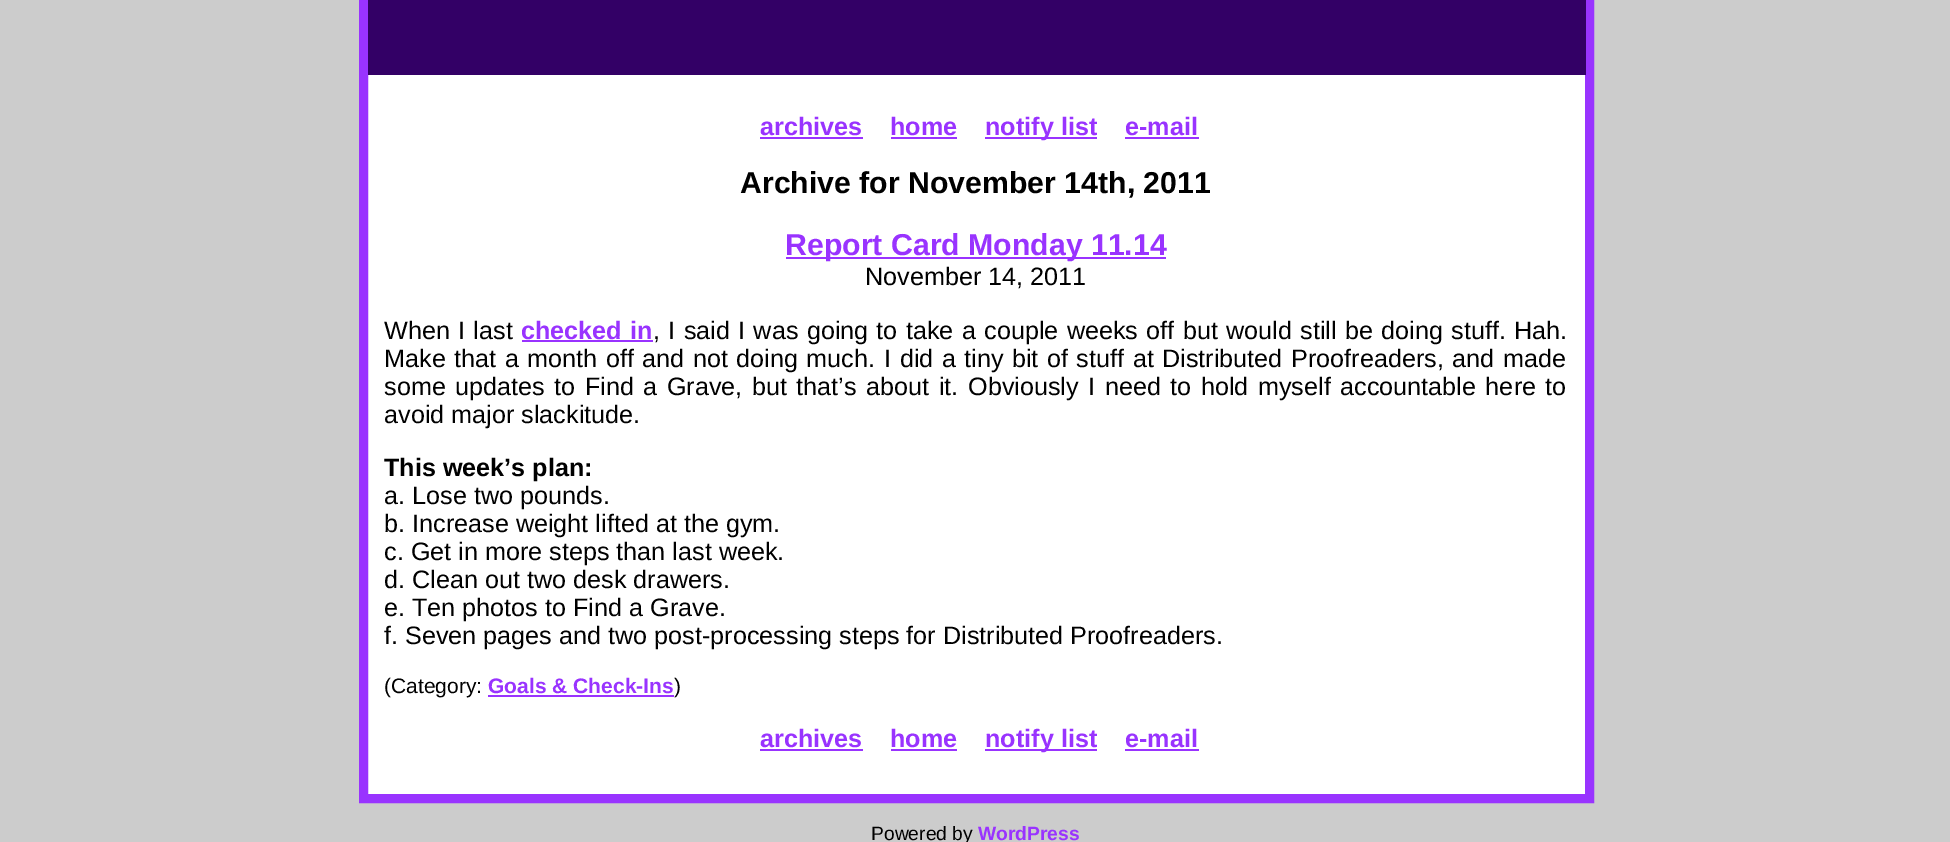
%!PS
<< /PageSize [1950 842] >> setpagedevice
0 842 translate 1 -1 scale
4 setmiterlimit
0.8 setgray
0 0 1950 842 rectfill
1 setgray
368 75 1217 719 rectfill
0.6 0.2 1 setrgbcolor
9 setlinewidth
363.5 -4.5 1226 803 rectstroke
0.2 0 0.4 setrgbcolor
368 0 1218 75 rectfill
/LiberationSans-Bold [25.2 0 0 -25.2 0 0] selectfont
0.6 0.2 1 setrgbcolor
760 135 moveto (archives) show
760 137 103 2 rectfill
890 135 moveto (home) show
891 137 66 2 rectfill
985 137 112 2 rectfill
985 135 moveto (notify list) show
1125 135 moveto (e-mail) show
1125 137 74 2 rectfill
/LiberationSans-Bold [30.25 0 0 -30.25 0 0] selectfont
0 setgray
740 193 moveto (Archive for November 14th, 2011) show
0.6 0.2 1 setrgbcolor
786 257 380 2 rectfill
785 255 moveto (Report Card Monday 11.14) show
/LiberationSans-Regular [25.2 0 0 -25.2 0 0] selectfont
0 setgray
865 285 moveto (November 14, 2011) show
384 339 moveto 1.3 0 32 (When I last) widthshow
/LiberationSans-Bold [25.2 0 0 -25.2 0 0] selectfont
0.6 0.2 1 setrgbcolor
521 339 moveto 1 0 32 (checked in) widthshow
522 340 131 2 rectfill
/LiberationSans-Regular [25.2 0 0 -25.2 0 0] selectfont
0 setgray
653 339 moveto 1.3 0 32 (, I said I was going to take a couple weeks off but would still be doing stuff.) widthshow
1514 339 moveto (Hah.) show
384 367 moveto 1.5 0 32 (Make that a month off and not doing much.) widthshow
884 367 moveto 1.5 0 32 (I did a tiny bit of stuff at Distributed Proofreaders, and made) widthshow
384 395 moveto 2.5 0 32 (some updates to Find a Grave, but that’s about it.) widthshow
968 395 moveto 2.5 0 32 (Obviously I need to hold myself accountable here to) widthshow
384 423 moveto (avoid major slackitude.) show
/LiberationSans-Bold [25.2 0 0 -25.2 0 0] selectfont
384 476 moveto (This week’s plan:) show
/LiberationSans-Regular [25.2 0 0 -25.2 0 0] selectfont
384 504 moveto (a. Lose two pounds.) show
384 532 moveto (b. Increase weight lifted at the gym.) show
384 560 moveto (c. Get in more steps than last week.) show
384 588 moveto (d. Clean out two desk drawers.) show
384 616 moveto (e. Ten photos to Find a Grave.) show
384 644 moveto (f. Seven pages and two post-processing steps for Distributed Proofreaders.) show
/LiberationSans-Regular [21 0 0 -21 0 0] selectfont
384 693 moveto (\(Category:) show
/LiberationSans-Bold [21 0 0 -21 0 0] selectfont
0.6 0.2 1 setrgbcolor
488 693 moveto (Goals & Check-Ins) show
488 695 186 2 rectfill
/LiberationSans-Regular [21 0 0 -21 0 0] selectfont
0 setgray
674 693 moveto (\)) show
/LiberationSans-Bold [25.2 0 0 -25.2 0 0] selectfont
0.6 0.2 1 setrgbcolor
760 747 moveto (archives) show
760 749 103 2 rectfill
890 747 moveto (home) show
891 749 66 2 rectfill
985 749 112 2 rectfill
985 747 moveto (notify list) show
1125 747 moveto (e-mail) show
1125 749 74 2 rectfill
/LiberationSans-Regular [19.25 0 0 -19.25 0 0] selectfont
0 setgray
871 840 moveto (Powered by) show
/LiberationSans-Bold [19.25 0 0 -19.25 0 0] selectfont
0.6 0.2 1 setrgbcolor
978 840 moveto (WordPress) show
showpage
